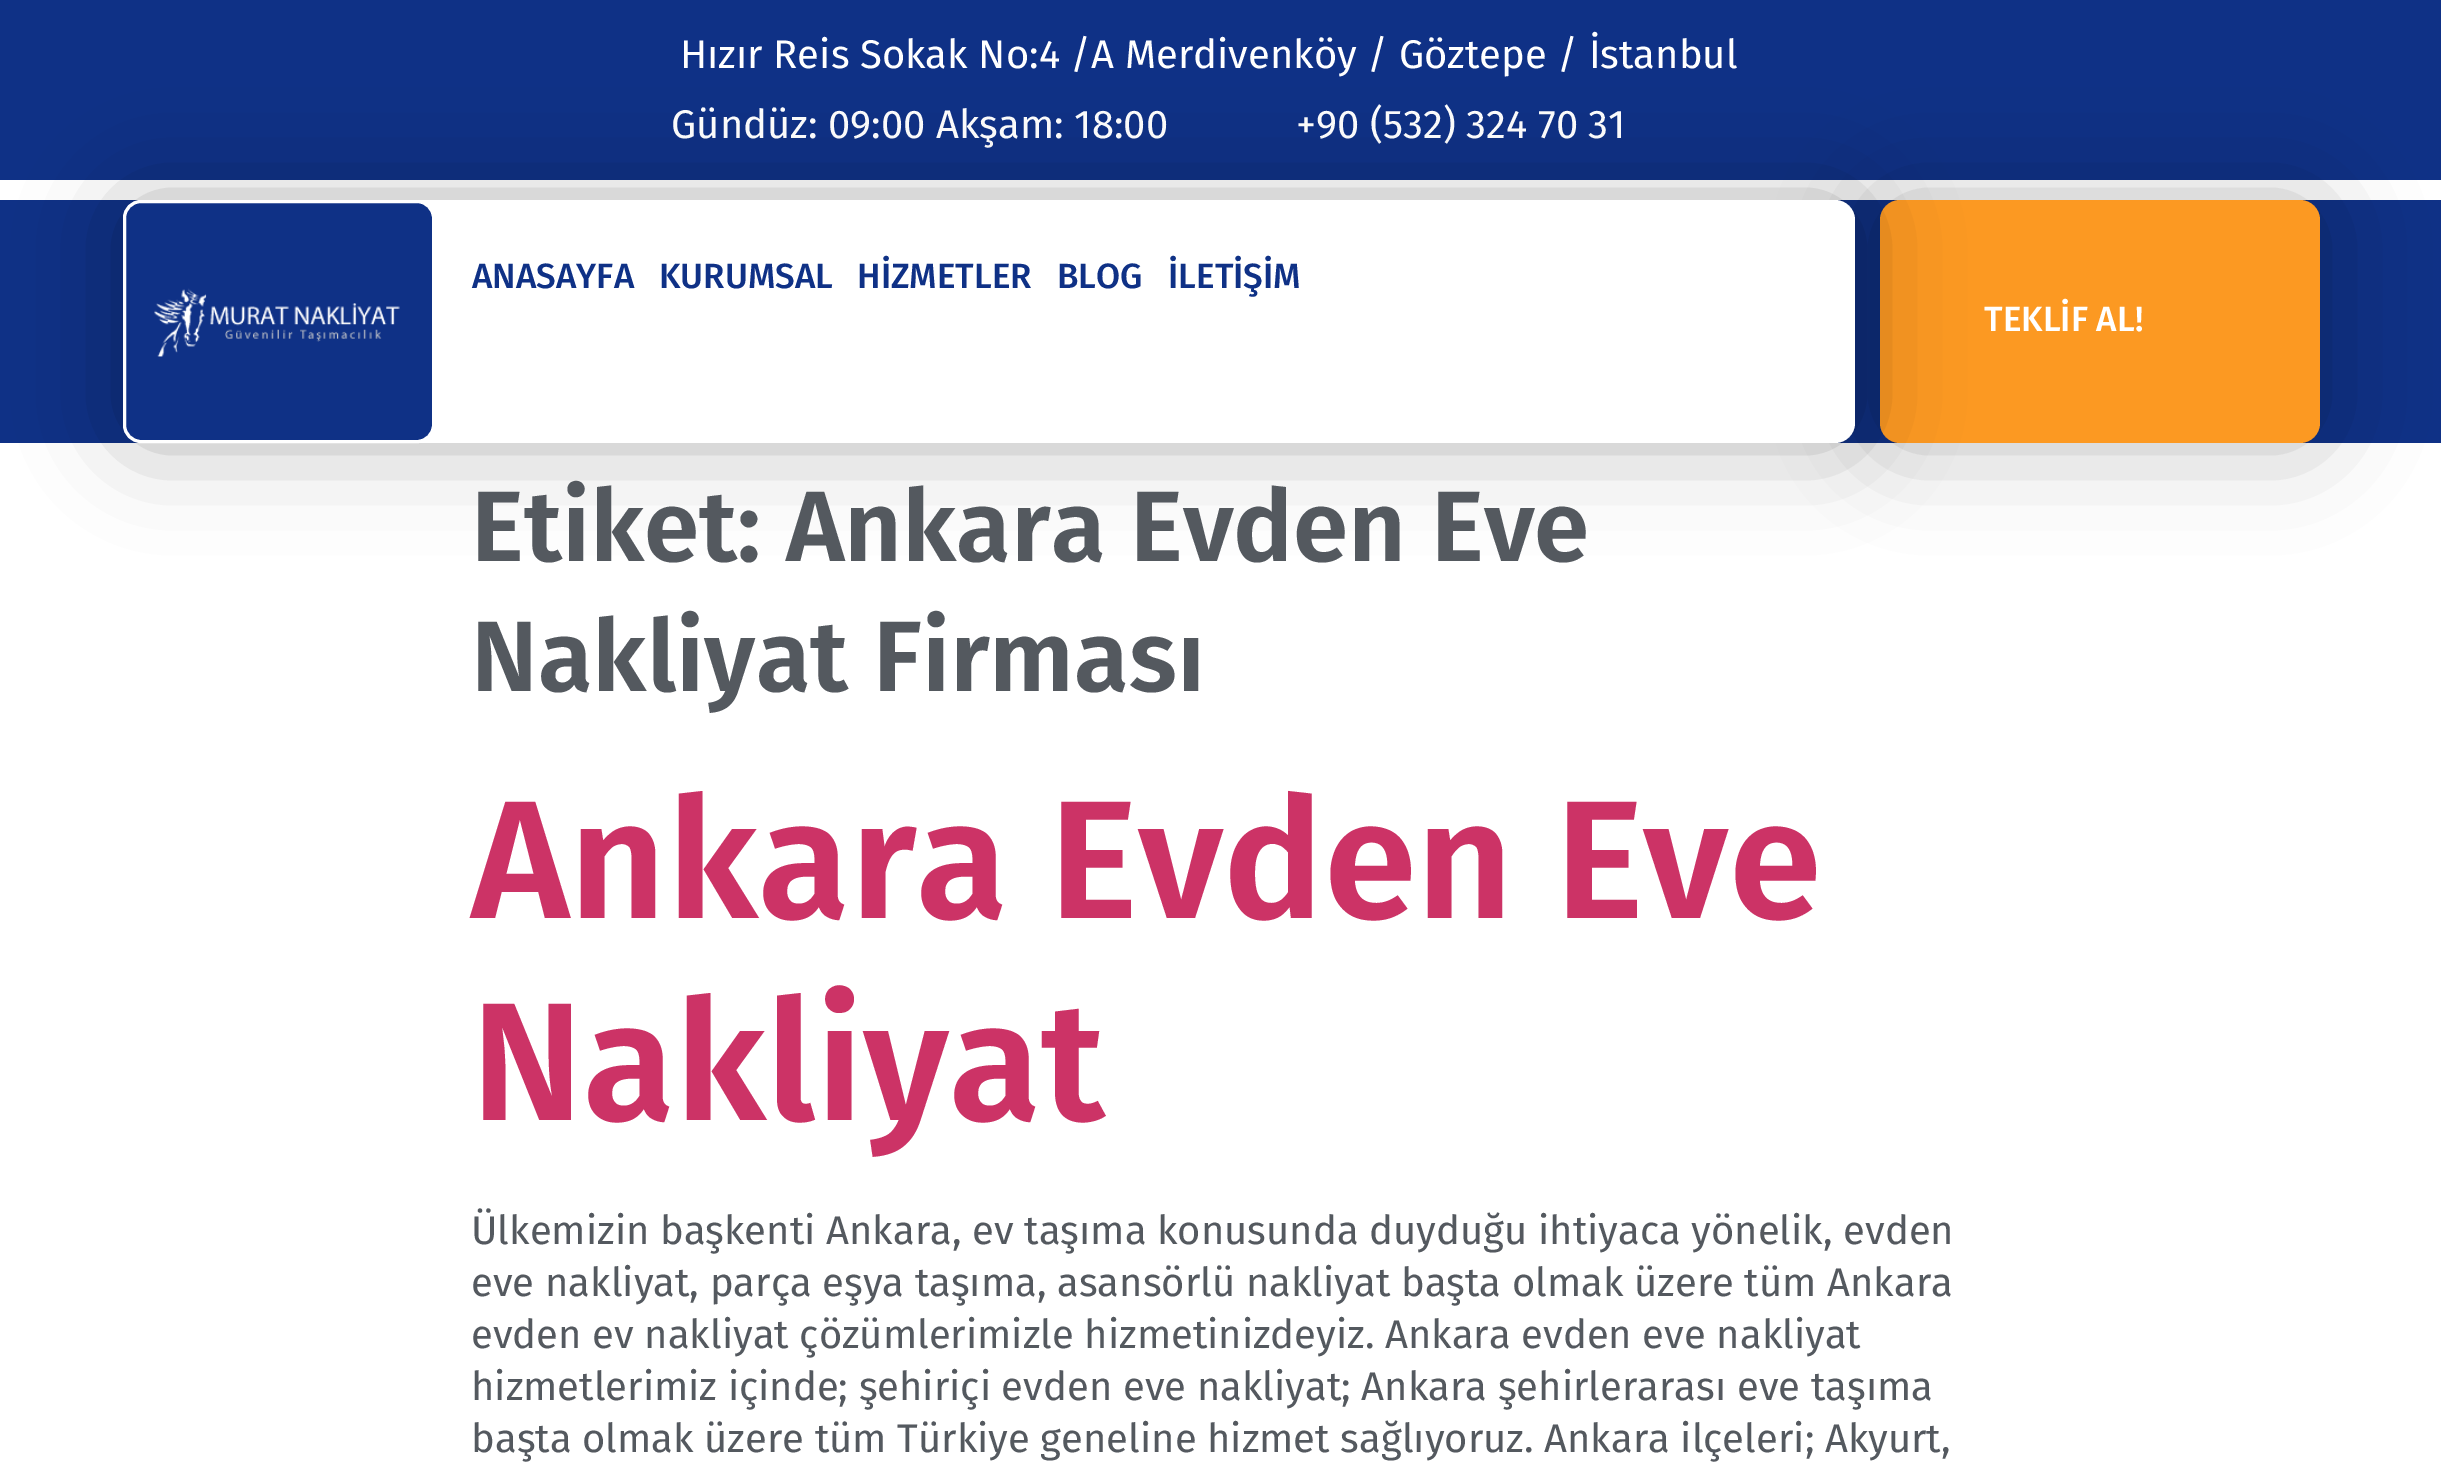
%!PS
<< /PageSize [2441 1464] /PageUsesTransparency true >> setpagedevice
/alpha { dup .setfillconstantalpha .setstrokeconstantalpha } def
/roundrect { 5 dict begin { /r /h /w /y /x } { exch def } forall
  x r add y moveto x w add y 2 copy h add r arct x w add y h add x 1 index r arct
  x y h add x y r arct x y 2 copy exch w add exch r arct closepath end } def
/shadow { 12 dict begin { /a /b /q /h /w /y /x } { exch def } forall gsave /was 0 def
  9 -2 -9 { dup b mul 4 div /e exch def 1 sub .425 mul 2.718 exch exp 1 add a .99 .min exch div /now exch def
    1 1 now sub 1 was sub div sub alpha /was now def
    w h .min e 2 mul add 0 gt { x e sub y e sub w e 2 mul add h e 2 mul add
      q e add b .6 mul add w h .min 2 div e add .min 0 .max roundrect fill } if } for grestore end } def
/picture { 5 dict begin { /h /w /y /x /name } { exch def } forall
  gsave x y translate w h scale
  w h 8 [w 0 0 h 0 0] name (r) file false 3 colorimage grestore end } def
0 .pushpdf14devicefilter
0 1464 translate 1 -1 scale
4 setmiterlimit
1 setgray
0 0 2441 1464 rectfill
0.059 0.192 0.525 setrgbcolor
0 0 2441 180 rectfill
/FiraSans-Regular [40 0 0 -40 0 0] selectfont
1 setgray
680 68 moveto (Hızır Reis Sokak No:4 /A Merdivenköy / Göztepe / İstanbul) show
671 138 moveto (Gündüz: 09:00 Akşam: 18:00) show
1296 138 moveto (+90 \(532\) 324 70 31) show
0.059 0.192 0.525 setrgbcolor
0 200 2441 243 rectfill
0 setgray
1880 200 440 243 20 50 0.26 shadow
0.988 0.6 0.133 setrgbcolor
1880 200 440 243 20 roundrect fill
0 setgray
123 200 1732 243 20 50 0.3 shadow
1 setgray
123 200 1732 243 20 roundrect fill
0.059 0.192 0.525 setrgbcolor
124.5 201.5 309 240 16.5 roundrect gsave fill grestore
1 setgray
3 setlinewidth
stroke
(img1.rgb) 154 288 246 69 picture
/FiraSans-Medium [35 0 0 -35 0 0] selectfont
0.059 0.192 0.525 setrgbcolor
472 288 moveto (ANASAYFA) show
659 288 moveto (KURUMSAL) show
857 288 moveto (HİZMETLER) show
1057 288 moveto (BLOG) show
1168 288 moveto (İLETİŞİM) show
1 setgray
1984 331 moveto (TEKLİF AL!) show
/FiraSans-SemiBold [100 0 0 -100 0 0] selectfont
0.329 0.349 0.373 setrgbcolor
471 561 moveto (Etiket: Ankara Evden Eve) show
471 691 moveto (Nakliyat Firması) show
/FiraSans-SemiBold [168 0 0 -168 0 0] selectfont
0.8 0.2 0.4 setrgbcolor
471 918 moveto (Ankara Evden Eve) show
471 1120 moveto (Nakliyat) show
/FiraSans-Regular [40 0 0 -40 0 0] selectfont
0.329 0.349 0.373 setrgbcolor
471 1244 moveto (Ülkemizin başkenti Ankara, ev taşıma konusunda duyduğu ihtiyaca yönelik, evden) show
471 1296 moveto (eve nakliyat, parça eşya taşıma, asansörlü nakliyat başta olmak üzere tüm Ankara) show
471 1348 moveto (evden ev nakliyat çözümlerimizle hizmetinizdeyiz. Ankara evden eve nakliyat) show
471 1400 moveto (hizmetlerimiz içinde; şehiriçi evden eve nakliyat; Ankara şehirlerarası eve taşıma) show
471 1452 moveto (başta olmak üzere tüm Türkiye geneline hizmet sağlıyoruz. Ankara ilçeleri; Akyurt,) show
.poppdf14devicefilter showpage
